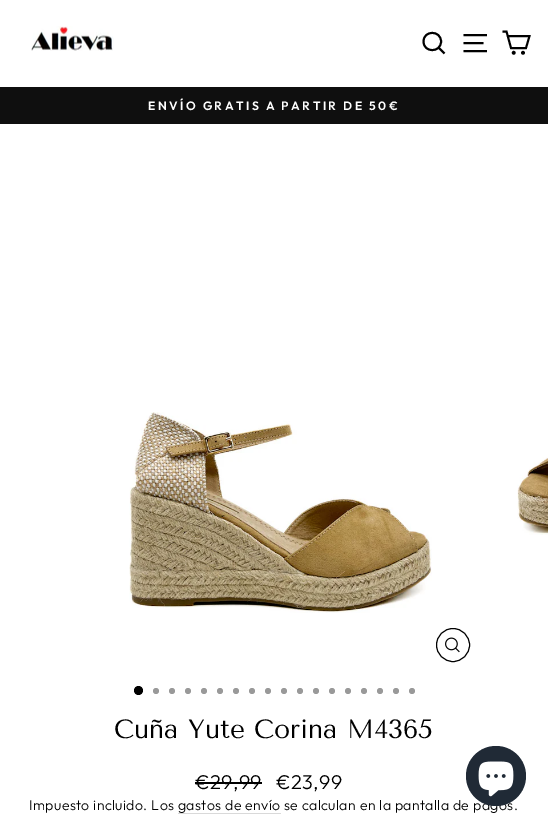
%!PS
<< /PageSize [548 827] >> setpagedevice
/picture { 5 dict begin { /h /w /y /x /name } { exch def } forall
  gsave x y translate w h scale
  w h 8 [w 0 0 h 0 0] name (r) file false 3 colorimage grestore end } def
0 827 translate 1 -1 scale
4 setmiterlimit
1 setgray
0 0 548 827 rectfill
(img1.rgb) 31 26 83 25 picture
0 setgray
1.9 setlinewidth
newpath 441 41.5 moveto 441 53 423.5 53 423.5 41.5 curveto 423.5 30 441 30 441 41.5 curveto closepath 444.5 53.5 moveto 438.5 47.5 lineto stroke
newpath 463.5 35 moveto 487 35 lineto 463.5 43 moveto 483.5 43 lineto 463.5 51 moveto 487 51 lineto stroke
newpath 507.5 36 moveto 529.5 36 lineto 526 48 lineto 511 48 lineto 506.5 31.5 lineto 502.5 31.5 lineto stroke
newpath 513.7 52.8 0.9 0 360 arc closepath stroke
newpath 523 52.8 0.9 0 360 arc closepath stroke
0.059 setgray
0 87 548 37 rectfill
/Outfit-SemiBold [12.15 0 0 -12.15 0 0] selectfont
1 setgray
148 110 moveto 2.4 0 (ENVÍO GRATIS A PARTIR DE 50€) ashow
(img2.rgb) 129 412 303 201 picture
0 setgray
1 setlinewidth
newpath 453 645 16.5 0 360 arc closepath stroke
(img3.rgb) 445 637 15 16 picture
(img4.rgb) 517 457 31 78 picture
newpath 138.5 690.5 4.5 0 360 arc closepath fill
0.6 setgray
newpath 156 691 3 0 360 arc closepath fill
newpath 172 691 3 0 360 arc closepath fill
newpath 188 691 3 0 360 arc closepath fill
newpath 204 691 3 0 360 arc closepath fill
newpath 220 691 3 0 360 arc closepath fill
newpath 236 691 3 0 360 arc closepath fill
newpath 252 691 3 0 360 arc closepath fill
newpath 268 691 3 0 360 arc closepath fill
newpath 284 691 3 0 360 arc closepath fill
newpath 300 691 3 0 360 arc closepath fill
newpath 316 691 3 0 360 arc closepath fill
newpath 332 691 3 0 360 arc closepath fill
newpath 348 691 3 0 360 arc closepath fill
newpath 364 691 3 0 360 arc closepath fill
newpath 380 691 3 0 360 arc closepath fill
newpath 396 691 3 0 360 arc closepath fill
newpath 412 691 3 0 360 arc closepath fill
/TenorSans-Regular [26.25 0 0 -26.25 0 0] selectfont
0 setgray
114 738 moveto (Cuña Yute Corina M4365) show
/Outfit-Light [20 0 0 -20 0 0] selectfont
195 789 moveto 0.4 0 (€29,99) ashow
195 782 67 2 rectfill
276 789 moveto 0.4 0 (€23,99) ashow
/Outfit-Light [14.1 0 0 -14.1 0 0] selectfont
29 810 moveto 0.4 0 (Impuesto incluido. Los gastos de envío se calculan en la pantalla de pagos.) ashow
0.851 setgray
178 813 103 1 rectfill
0.125 0.165 0.212 setrgbcolor
newpath 496 776 30 0 360 arc closepath fill
(img5.rgb) 478 761 36 36 picture
showpage
